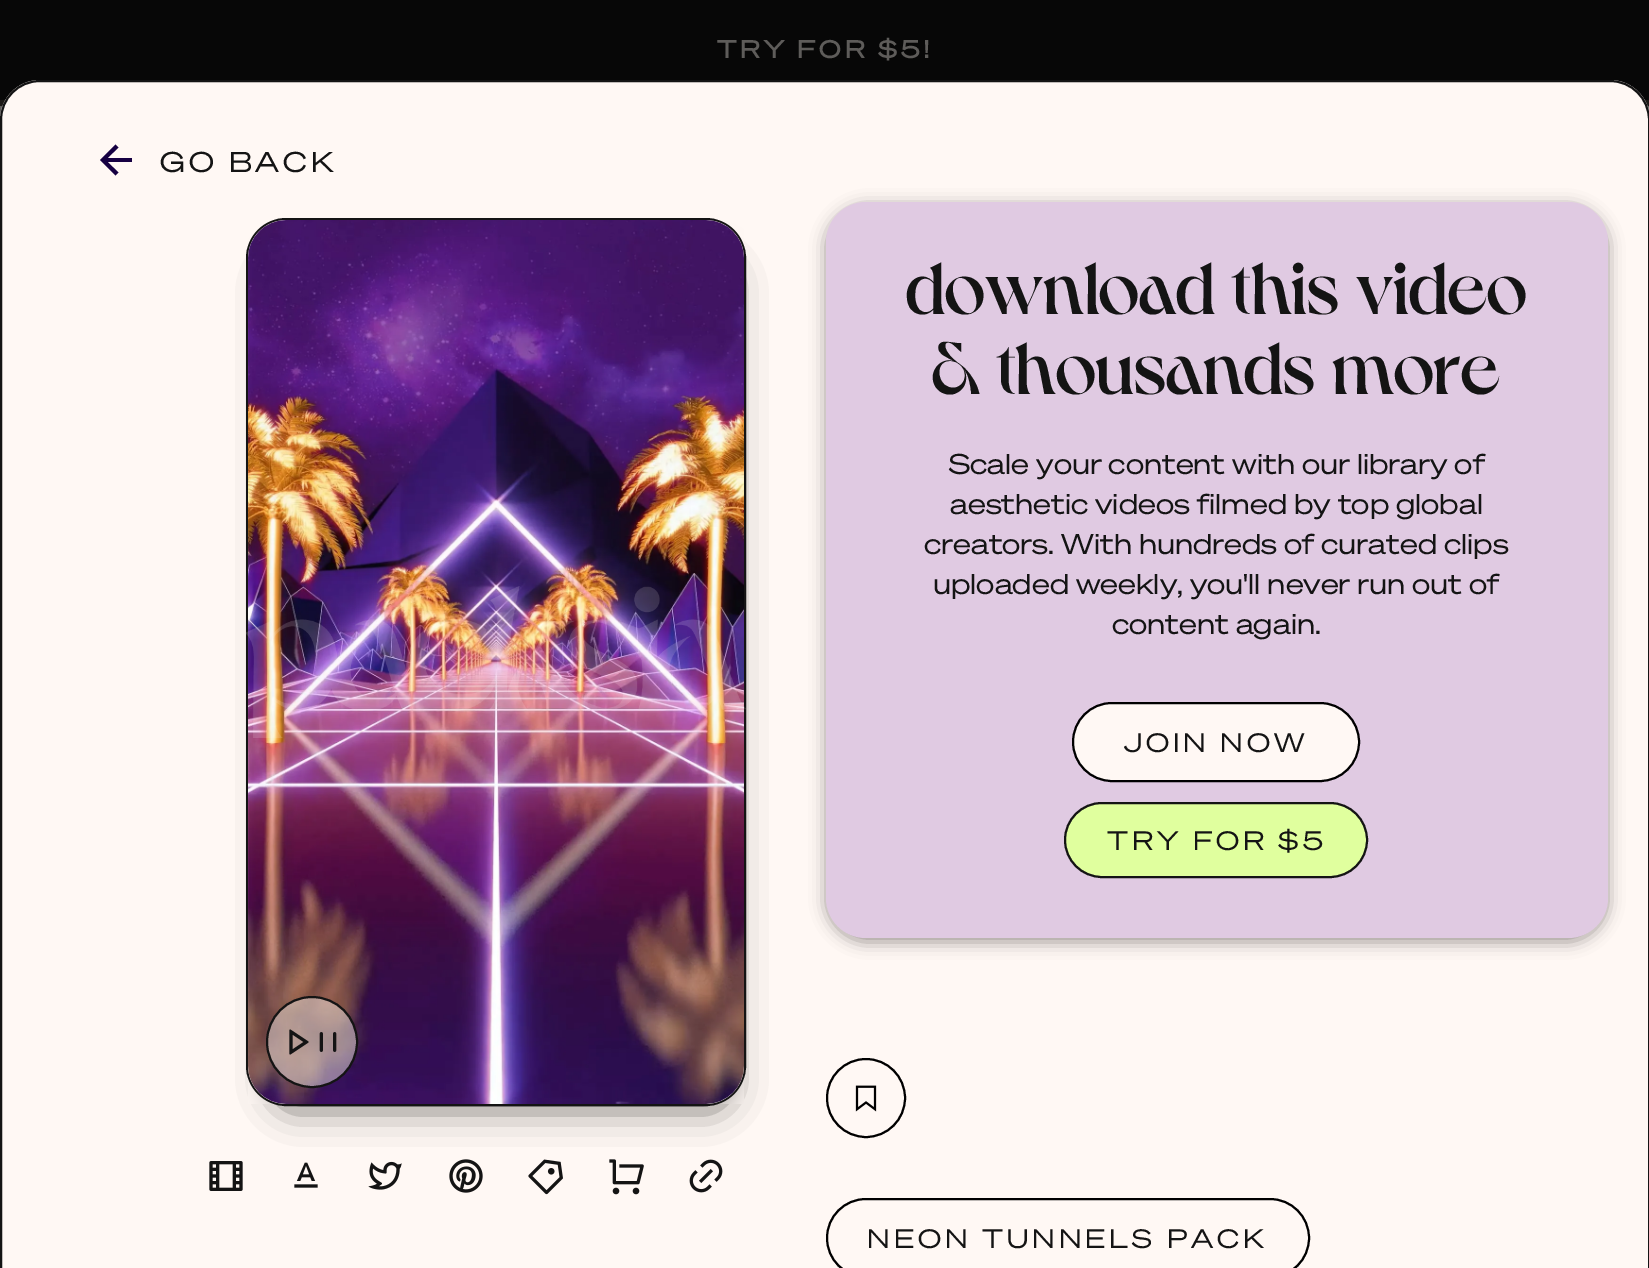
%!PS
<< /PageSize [1649 1268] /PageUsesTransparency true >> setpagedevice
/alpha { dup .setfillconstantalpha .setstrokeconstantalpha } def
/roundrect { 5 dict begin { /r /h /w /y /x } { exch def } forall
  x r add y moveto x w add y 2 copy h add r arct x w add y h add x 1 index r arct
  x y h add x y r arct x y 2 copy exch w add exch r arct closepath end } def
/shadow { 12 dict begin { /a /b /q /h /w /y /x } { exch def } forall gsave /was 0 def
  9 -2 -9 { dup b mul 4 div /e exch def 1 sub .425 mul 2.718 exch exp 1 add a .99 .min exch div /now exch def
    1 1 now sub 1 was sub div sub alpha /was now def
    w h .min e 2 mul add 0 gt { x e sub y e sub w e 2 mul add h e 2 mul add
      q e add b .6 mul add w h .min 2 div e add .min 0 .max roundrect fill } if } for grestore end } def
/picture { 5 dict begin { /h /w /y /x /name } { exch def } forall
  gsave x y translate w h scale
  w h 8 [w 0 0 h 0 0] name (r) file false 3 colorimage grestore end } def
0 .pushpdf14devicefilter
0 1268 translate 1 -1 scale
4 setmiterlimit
0.369 0.361 0.353 setrgbcolor
0 0 1649 1268 rectfill
0.027 setgray
0 0 1649 100 rectfill
0.11 0.098 0.086 setrgbcolor
0 100 1649 6 rectfill
/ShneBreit-Bold [24 0 0 -24 0 0] selectfont
0.369 0.361 0.353 setrgbcolor
717 58 moveto 4 0 (TRY FOR $5!) ashow
1 0.973 0.957 setrgbcolor
newpath 40 80 moveto 1610 80 lineto 1632 80 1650 98 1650 120 curveto 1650 1268 lineto 0 1268 lineto 0 120 lineto 0 98 18 80 40 80 curveto closepath fill
0.078 setgray
2 setlinewidth
1 81 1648 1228 39 roundrect stroke
0.086 0 0.259 setrgbcolor
newpath 107.5 158 moveto 132 158 lineto 132 162 lineto 107.5 162 lineto 118.5 172.5 lineto 115.5 175.5 lineto 100 160 lineto 115.5 144.5 lineto 118.5 147.5 lineto closepath fill
/ShneBreit-Regular [28 0 0 -28 0 0] selectfont
0.078 setgray
160 172 moveto 4 0 (GO BACK) ashow
(img5.rgb) 209 1161 34 30 picture
(img6.rgb) 294 1162 24 26 picture
(img7.rgb) 368 1161 34 29 picture
(img8.rgb) 449 1159 34 34 picture
(img9.rgb) 528 1159 35 36 picture
(img10.rgb) 609 1159 35 36 picture
(img11.rgb) 689 1159 34 34 picture
0.2 setgray
280 270 444 832 12 20 1 shadow
0.078 setgray
247 219 498 886 39 roundrect stroke
(img1.rgb) 248 220 496 884 picture
(img2.rgb) 246 586 500 152 picture
0.45 alpha
1 0.973 0.957 setrgbcolor
newpath 312 1042 45 0 360 arc closepath fill
1 alpha
0.078 setgray
newpath 312 1042 45 0 360 arc closepath stroke
(img3.rgb) 289 1029 20 26 picture
(img4.rgb) 319 1032 18 20 picture
0 setgray
826 206 782 736 40 8 0.38 shadow
0.878 0.792 0.886 setrgbcolor
826 202 782 736 40 roundrect fill
/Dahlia-Medium [74 0 0 -74 0 0] selectfont
0.078 setgray
906 314 moveto (download this video) show
932 394 moveto (& thousands more) show
/ShneBreit-Regular [28 0 0 -28 0 0] selectfont
949 474 moveto (Scale your content with our library of) show
950 514 moveto (aesthetic videos filmed by top global) show
924 554 moveto (creators. With hundreds of curated clips) show
933 594 moveto (uploaded weekly, you'll never run out of) show
1112 634 moveto (content again.) show
1 0.973 0.957 setrgbcolor
1073 703 286 78 39 roundrect gsave fill grestore
0 setgray
stroke
/ShneBreit-Regular [26 0 0 -26 0 0] selectfont
0.078 setgray
1124 752 moveto 4 0 (JOIN NOW) ashow
0.878 1 0.62 setrgbcolor
1065 803 302 74 37 roundrect gsave fill grestore
0.078 setgray
stroke
1107 850 moveto 4 0 (TRY FOR $5) ashow
0 setgray
newpath 866 1098 39 0 360 arc closepath stroke
(img12.rgb) 855 1085 22 27 picture
827 1199 482 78 39 roundrect stroke
0.078 setgray
867 1248 moveto 4 0 (NEON TUNNELS PACK) ashow
.poppdf14devicefilter showpage
